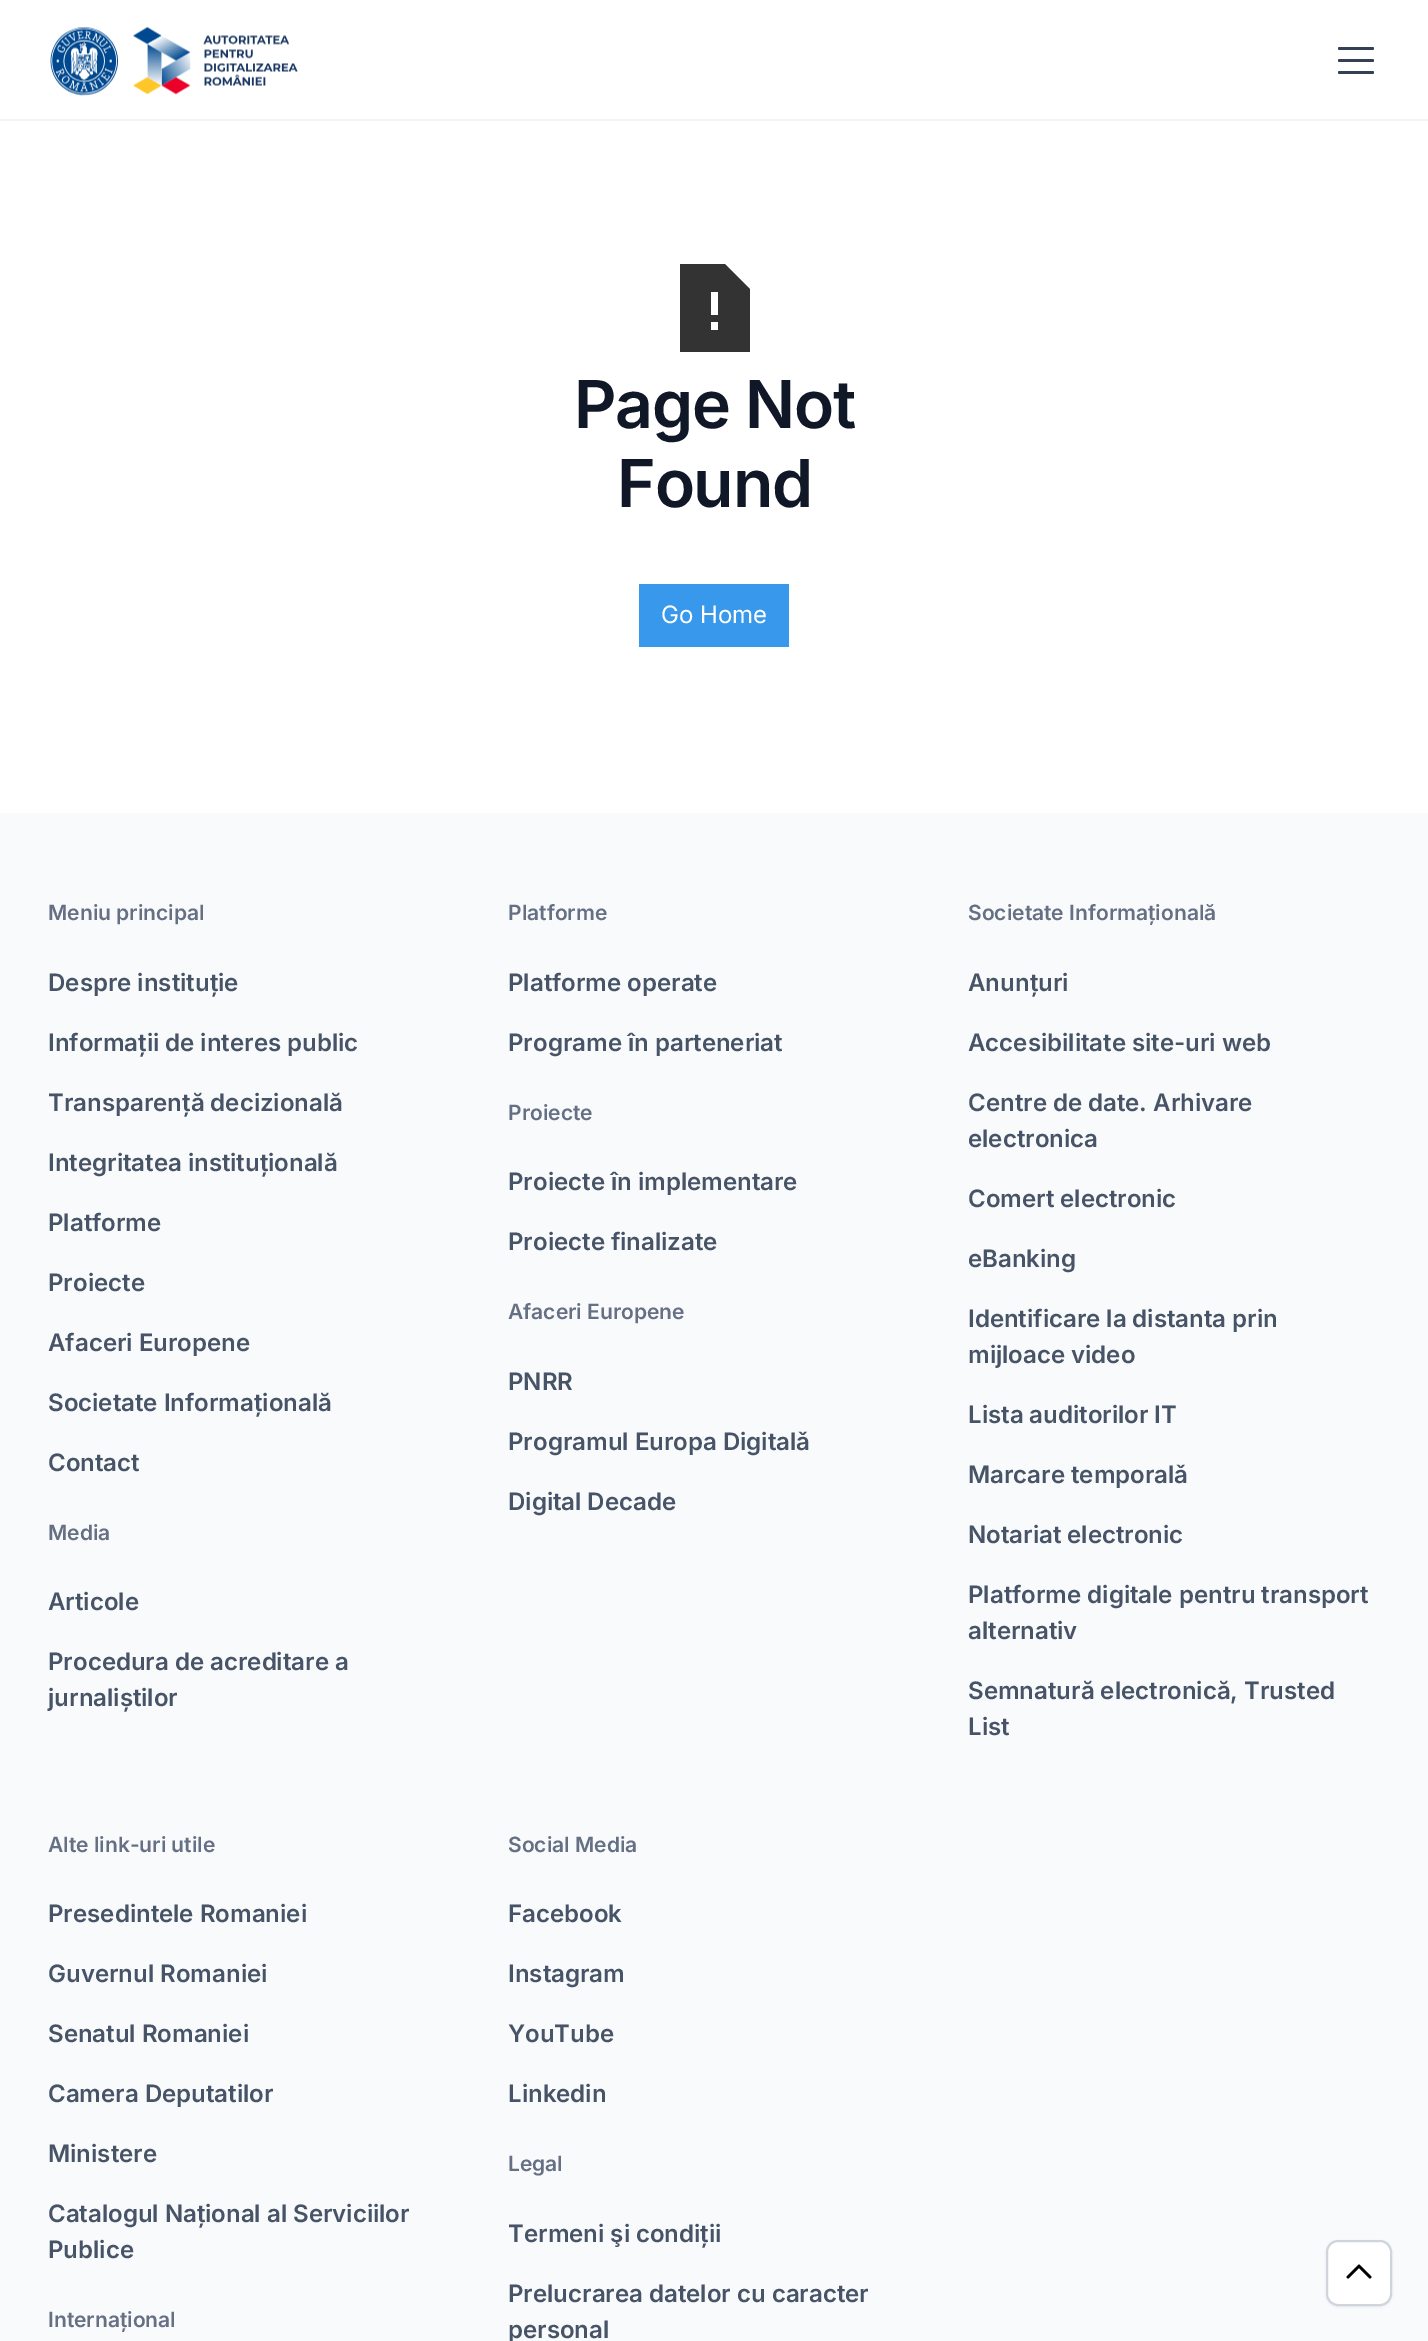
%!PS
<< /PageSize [1428 2341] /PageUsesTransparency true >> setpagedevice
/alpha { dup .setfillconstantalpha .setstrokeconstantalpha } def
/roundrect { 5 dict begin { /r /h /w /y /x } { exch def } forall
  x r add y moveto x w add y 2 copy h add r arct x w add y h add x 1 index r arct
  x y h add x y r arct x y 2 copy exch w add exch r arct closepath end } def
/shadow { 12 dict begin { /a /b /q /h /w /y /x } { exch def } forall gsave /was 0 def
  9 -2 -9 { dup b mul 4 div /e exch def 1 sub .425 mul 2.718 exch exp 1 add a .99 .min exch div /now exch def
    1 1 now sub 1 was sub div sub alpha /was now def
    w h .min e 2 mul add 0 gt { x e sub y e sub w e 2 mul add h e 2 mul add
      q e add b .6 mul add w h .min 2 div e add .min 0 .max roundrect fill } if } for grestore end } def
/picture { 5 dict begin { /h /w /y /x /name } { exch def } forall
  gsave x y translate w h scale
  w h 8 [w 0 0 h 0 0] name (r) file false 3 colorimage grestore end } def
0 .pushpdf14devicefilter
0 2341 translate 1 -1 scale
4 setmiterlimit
1 setgray
0 0 1428 2341 rectfill
0.949 0.957 0.969 setrgbcolor
0 119 1428 2 rectfill
(img1.rgb) 50 26 248 70 picture
0.204 0.251 0.329 setrgbcolor
1338 47 36 3 1.5 roundrect fill
1338 59 36 3 1.5 roundrect fill
1338 71 36 3 1.5 roundrect fill
0.2 setgray
newpath 680 264 moveto 725 264 lineto 750 289 lineto 750 352 lineto 680 352 lineto closepath 711 292 moveto 718 292 lineto 718 315 lineto 711 315 lineto closepath 711 322 moveto 718 322 lineto 718 330 lineto 711 330 lineto closepath eofill
/Inter-SemiBold [66 0 0 -66 0 0] selectfont
0.063 0.094 0.157 setrgbcolor
574 428 moveto -1.25 0 (Page Not) ashow
617 507 moveto -1.25 0 (Found) ashow
0.22 0.596 0.925 setrgbcolor
639 584 150 63 rectfill
/Inter-Regular [24 0 0 -24 0 0] selectfont
1 setgray
661 623 moveto (Go Home) show
0.976 0.98 0.984 setrgbcolor
0 813 1428 1528 rectfill
/Inter-SemiBold [21 0 0 -21 0 0] selectfont
0.4 0.439 0.522 setrgbcolor
48 920 moveto (Meniu principal) show
/Inter-SemiBold [24 0 0 -24 0 0] selectfont
0.278 0.329 0.404 setrgbcolor
48 991 moveto (Despre instituție) show
48 1051 moveto (Informații de interes public) show
48 1111 moveto (Transparență decizională) show
48 1171 moveto (Integritatea instituțională) show
48 1231 moveto (Platforme) show
48 1291 moveto (Proiecte) show
48 1351 moveto (Afaceri Europene) show
48 1411 moveto (Societate Informațională) show
48 1471 moveto (Contact) show
/Inter-SemiBold [21 0 0 -21 0 0] selectfont
0.4 0.439 0.522 setrgbcolor
48 1540 moveto (Media) show
/Inter-SemiBold [24 0 0 -24 0 0] selectfont
0.278 0.329 0.404 setrgbcolor
48 1610 moveto (Articole) show
48 1670 moveto (Procedura de acreditare a) show
48 1706 moveto (jurnaliștilor) show
/Inter-SemiBold [21 0 0 -21 0 0] selectfont
0.4 0.439 0.522 setrgbcolor
508 920 moveto (Platforme) show
/Inter-SemiBold [24 0 0 -24 0 0] selectfont
0.278 0.329 0.404 setrgbcolor
508 991 moveto (Platforme operate) show
508 1051 moveto (Programe în parteneriat) show
/Inter-SemiBold [21 0 0 -21 0 0] selectfont
0.4 0.439 0.522 setrgbcolor
508 1120 moveto (Proiecte) show
/Inter-SemiBold [24 0 0 -24 0 0] selectfont
0.278 0.329 0.404 setrgbcolor
508 1190 moveto (Proiecte în implementare) show
508 1250 moveto (Proiecte finalizate) show
/Inter-SemiBold [21 0 0 -21 0 0] selectfont
0.4 0.439 0.522 setrgbcolor
508 1319 moveto (Afaceri Europene) show
/Inter-SemiBold [24 0 0 -24 0 0] selectfont
0.278 0.329 0.404 setrgbcolor
508 1390 moveto (PNRR) show
508 1450 moveto (Programul Europa Digitalǎ) show
508 1510 moveto (Digital Decade) show
/Inter-SemiBold [21 0 0 -21 0 0] selectfont
0.4 0.439 0.522 setrgbcolor
968 920 moveto (Societate Informațională) show
/Inter-SemiBold [24 0 0 -24 0 0] selectfont
0.278 0.329 0.404 setrgbcolor
968 991 moveto (Anunțuri) show
968 1051 moveto (Accesibilitate site-uri web) show
968 1111 moveto (Centre de date. Arhivare) show
968 1147 moveto (electronica) show
968 1207 moveto (Comert electronic) show
968 1267 moveto (eBanking) show
968 1327 moveto (Identificare la distanta prin) show
968 1363 moveto (mijloace video) show
968 1423 moveto (Lista auditorilor IT) show
968 1483 moveto (Marcare temporalǎ) show
968 1543 moveto (Notariat electronic) show
968 1603 moveto (Platforme digitale pentru transport) show
968 1639 moveto (alternativ) show
968 1699 moveto (Semnatură electronică, Trusted) show
968 1735 moveto (List) show
/Inter-SemiBold [21 0 0 -21 0 0] selectfont
0.4 0.439 0.522 setrgbcolor
48 1852 moveto (Alte link-uri utile) show
/Inter-SemiBold [24 0 0 -24 0 0] selectfont
0.278 0.329 0.404 setrgbcolor
48 1922 moveto (Presedintele Romaniei) show
48 1982 moveto (Guvernul Romaniei) show
48 2042 moveto (Senatul Romaniei) show
48 2102 moveto (Camera Deputatilor) show
48 2162 moveto (Ministere) show
48 2222 moveto (Catalogul Național al Serviciilor) show
48 2258 moveto (Publice) show
/Inter-SemiBold [21 0 0 -21 0 0] selectfont
0.4 0.439 0.522 setrgbcolor
48 2327 moveto (Internațional) show
508 1852 moveto (Social Media) show
/Inter-SemiBold [24 0 0 -24 0 0] selectfont
0.278 0.329 0.404 setrgbcolor
508 1922 moveto (Facebook) show
508 1982 moveto (Instagram) show
508 2042 moveto (YouTube) show
508 2102 moveto (Linkedin) show
/Inter-SemiBold [21 0 0 -21 0 0] selectfont
0.4 0.439 0.522 setrgbcolor
508 2171 moveto (Legal) show
/Inter-SemiBold [24 0 0 -24 0 0] selectfont
0.278 0.329 0.404 setrgbcolor
508 2242 moveto (Termeni şi condiții) show
508 2302 moveto (Prelucrarea datelor cu caracter) show
508 2338 moveto (personal) show
0.063 0.094 0.157 setrgbcolor
1326 2241 66 66 12 1.5 0.05 shadow
1 setgray
1327 2241 64 64 11 roundrect gsave fill grestore
0.816 0.835 0.867 setrgbcolor
2 setlinewidth
stroke
(img2.rgb) 1346 2264 26 15 picture
.poppdf14devicefilter showpage
